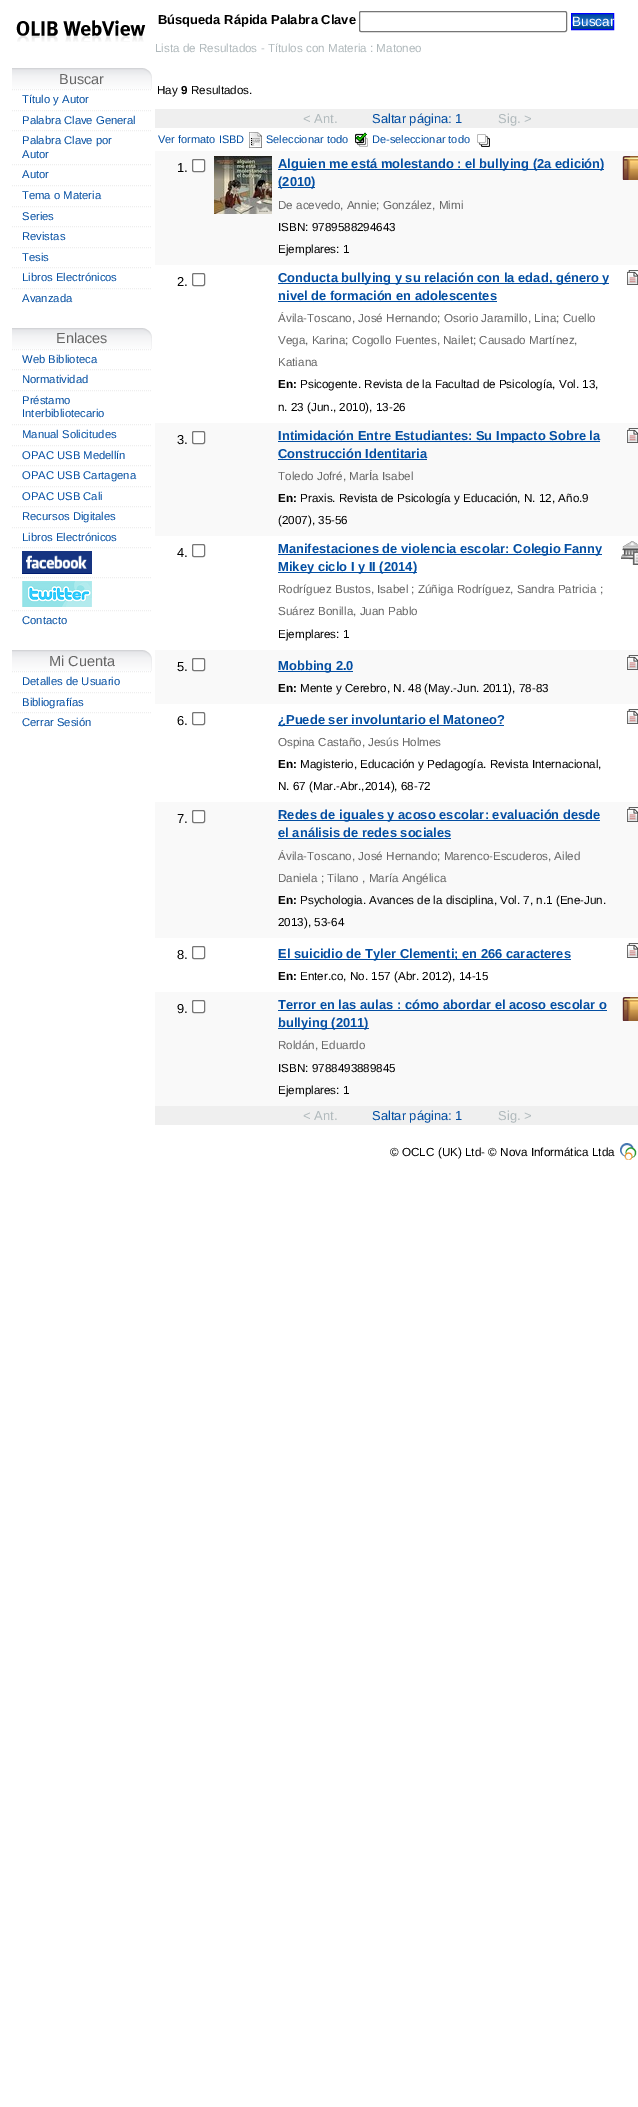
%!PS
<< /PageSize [638 2107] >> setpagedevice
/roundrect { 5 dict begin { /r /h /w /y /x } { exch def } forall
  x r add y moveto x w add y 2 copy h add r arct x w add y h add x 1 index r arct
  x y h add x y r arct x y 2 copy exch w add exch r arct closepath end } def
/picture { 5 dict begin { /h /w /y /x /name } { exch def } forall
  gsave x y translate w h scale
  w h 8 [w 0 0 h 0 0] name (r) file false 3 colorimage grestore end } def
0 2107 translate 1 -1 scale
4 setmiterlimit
1 setgray
0 0 638 2107 rectfill
(img1.rgb) 16 20 130 22 picture
(img2.rgb) 12 68 140 21 picture
/LiberationSans-Regular [14.5 0 0 -14.5 0 0] selectfont
0.4 setgray
59 84 moveto (Buscar) show
0.933 setgray
[1 1] 0 setdash
newpath 12 89.5 moveto 152 89.5 lineto stroke
/LiberationSans-Regular [11.25 0 0 -11.25 0 0] selectfont
0.012 0.306 0.635 setrgbcolor
22 103 moveto (Título y Autor) show
0.933 setgray
newpath 12 110.5 moveto 152 110.5 lineto stroke
0.012 0.306 0.635 setrgbcolor
22 124 moveto (Palabra Clave General) show
0.933 setgray
newpath 12 130.5 moveto 152 130.5 lineto stroke
0.012 0.306 0.635 setrgbcolor
22 144 moveto (Palabra Clave por) show
22 158 moveto (Autor) show
0.933 setgray
newpath 12 164.5 moveto 152 164.5 lineto stroke
0.012 0.306 0.635 setrgbcolor
22 178 moveto (Autor) show
0.933 setgray
newpath 12 185.5 moveto 152 185.5 lineto stroke
0.012 0.306 0.635 setrgbcolor
22 199 moveto (Tema o Materia) show
0.933 setgray
newpath 12 206.5 moveto 152 206.5 lineto stroke
0.012 0.306 0.635 setrgbcolor
22 220 moveto (Series) show
0.933 setgray
newpath 12 226.5 moveto 152 226.5 lineto stroke
0.012 0.306 0.635 setrgbcolor
22 240 moveto (Revistas) show
0.933 setgray
newpath 12 247.5 moveto 152 247.5 lineto stroke
0.012 0.306 0.635 setrgbcolor
22 261 moveto (Tesis) show
0.933 setgray
newpath 12 267.5 moveto 152 267.5 lineto stroke
0.012 0.306 0.635 setrgbcolor
22 281 moveto (Libros Electrónicos) show
0.933 setgray
newpath 12 288.5 moveto 152 288.5 lineto stroke
0.012 0.306 0.635 setrgbcolor
22 302 moveto (Avanzada) show
(img2.rgb) 12 328 140 21 picture
/LiberationSans-Regular [14.5 0 0 -14.5 0 0] selectfont
0.4 setgray
56 343 moveto (Enlaces) show
0.933 setgray
newpath 12 349.5 moveto 152 349.5 lineto stroke
/LiberationSans-Regular [11.25 0 0 -11.25 0 0] selectfont
0.012 0.306 0.635 setrgbcolor
22 363 moveto (Web Biblioteca) show
0.933 setgray
newpath 12 369.5 moveto 152 369.5 lineto stroke
0.012 0.306 0.635 setrgbcolor
22 383 moveto (Normatividad) show
0.933 setgray
newpath 12 390.5 moveto 152 390.5 lineto stroke
0.012 0.306 0.635 setrgbcolor
22 404 moveto (Préstamo) show
22 417 moveto (Interbibliotecario) show
0.933 setgray
newpath 12 424.5 moveto 152 424.5 lineto stroke
0.012 0.306 0.635 setrgbcolor
22 438 moveto (Manual Solicitudes) show
0.933 setgray
newpath 12 445.5 moveto 152 445.5 lineto stroke
0.012 0.306 0.635 setrgbcolor
22 459 moveto (OPAC USB Medellín) show
0.933 setgray
newpath 12 465.5 moveto 152 465.5 lineto stroke
0.012 0.306 0.635 setrgbcolor
22 479 moveto (OPAC USB Cartagena) show
0.933 setgray
newpath 12 486.5 moveto 152 486.5 lineto stroke
0.012 0.306 0.635 setrgbcolor
22 500 moveto (OPAC USB Cali) show
0.933 setgray
newpath 12 506.5 moveto 152 506.5 lineto stroke
0.012 0.306 0.635 setrgbcolor
22 520 moveto (Recursos Digitales) show
0.933 setgray
newpath 12 527.5 moveto 152 527.5 lineto stroke
0.012 0.306 0.635 setrgbcolor
22 541 moveto (Libros Electrónicos) show
0.933 setgray
newpath 12 547.5 moveto 152 547.5 lineto stroke
(img3.rgb) 22 551 70 23 picture
newpath 12 577.5 moveto 152 577.5 lineto stroke
(img4.rgb) 22 581 70 26 picture
newpath 12 610.5 moveto 152 610.5 lineto stroke
0.012 0.306 0.635 setrgbcolor
22 624 moveto (Contacto) show
(img2.rgb) 12 650 140 21 picture
/LiberationSans-Regular [14.5 0 0 -14.5 0 0] selectfont
0.4 setgray
49 666 moveto (Mi Cuenta) show
0.933 setgray
newpath 12 671.5 moveto 152 671.5 lineto stroke
/LiberationSans-Regular [11.25 0 0 -11.25 0 0] selectfont
0.012 0.306 0.635 setrgbcolor
22 685 moveto (Detalles de Usuario) show
0.933 setgray
newpath 12 692.5 moveto 152 692.5 lineto stroke
0.012 0.306 0.635 setrgbcolor
22 706 moveto (Bibliografías) show
0.933 setgray
newpath 12 712.5 moveto 152 712.5 lineto stroke
0.012 0.306 0.635 setrgbcolor
22 726 moveto (Cerrar Sesión) show
/LiberationSans-Bold [12.95 0 0 -12.95 0 0] selectfont
0 setgray
158 24 moveto (Búsqueda Rápida Palabra Clave) show
0.463 setgray
[] 0 setdash
359.5 11.5 207 20 1.5 roundrect stroke
(img5.rgb) 572 14 41 15 picture
0 0 1 setrgbcolor
571.5 13.5 42 16 rectstroke
/LiberationSans-Regular [13.5 0 0 -13.5 0 0] selectfont
1 setgray
572 26 moveto (Buscar) show
/LiberationSans-Regular [11.65 0 0 -11.65 0 0] selectfont
0.69 0.725 0.737 setrgbcolor
155 52 moveto (Lista de Resultados - Títulos con Materia : Matoneo) show
0 setgray
157 94 moveto (Hay) show
/LiberationSans-Bold [11.65 0 0 -11.65 0 0] selectfont
181 94 moveto (9) show
/LiberationSans-Regular [11.65 0 0 -11.65 0 0] selectfont
191 94 moveto (Resultados.) show
0.937 setgray
155 109 483 19 rectfill
/LiberationSans-Regular [12.95 0 0 -12.95 0 0] selectfont
0.69 0.725 0.737 setrgbcolor
303 123 moveto (< Ant.) show
0.012 0.306 0.635 setrgbcolor
372 123 moveto (Saltar página: 1) show
0.69 0.725 0.737 setrgbcolor
498 123 moveto (Sig. >) show
/LiberationSans-Regular [11 0 0 -11 0 0] selectfont
0.012 0.306 0.635 setrgbcolor
158 143 moveto (Ver formato ISBD) show
(img6.rgb) 249 132 13 16 picture
266 143 moveto (Seleccionar todo) show
(img7.rgb) 355 132 13 15 picture
372 143 moveto (De-seleccionar todo) show
(img8.rgb) 477 134 13 13 picture
0.976 setgray
155 151 483 114 rectfill
/LiberationSans-Regular [12.95 0 0 -12.95 0 0] selectfont
0 setgray
177 172 moveto (1.) show
1 setgray
192.5 159.5 12 12 1.5 roundrect gsave fill grestore
0.463 setgray
stroke
(img9.rgb) 214 156 58 58 picture
0.012 0.306 0.635 setrgbcolor
278 169 326 1 rectfill
/LiberationSans-Bold [12.95 0 0 -12.95 0 0] selectfont
278 168 moveto (Alguien me está molestando : el bullying \(2a edición\)) show
278 187 37 1 rectfill
278 186 moveto (\(2010\)) show
/LiberationSans-Regular [11.65 0 0 -11.65 0 0] selectfont
0.4 setgray
278 209 moveto (De acevedo, Annie; González, Mimi) show
0 setgray
278 231 moveto (ISBN: 9789588294643) show
278 253 moveto (Ejemplares: 1) show
(img10.rgb) 622 156 16 24 picture
/LiberationSans-Regular [12.95 0 0 -12.95 0 0] selectfont
177 286 moveto (2.) show
0.463 setgray
192.5 273.5 12 12 1.5 roundrect stroke
0.012 0.306 0.635 setrgbcolor
278 283 331 1 rectfill
/LiberationSans-Bold [12.95 0 0 -12.95 0 0] selectfont
278 282 moveto (Conducta bullying y su relación con la edad, género y) show
278 300 moveto (nivel de formación en adolescentes) show
278 301 219 1 rectfill
/LiberationSans-Regular [11.65 0 0 -11.65 0 0] selectfont
0.4 setgray
278 322 moveto (Ávila-Toscano, José Hernando; Osorio Jaramillo, Lina; Cuello) show
278 344 moveto (Vega, Karina; Cogollo Fuentes, Nailet; Causado Martínez,) show
278 366 moveto (Katiana) show
/LiberationSans-Bold [11.65 0 0 -11.65 0 0] selectfont
0 setgray
278 388 moveto (En:) show
/LiberationSans-Regular [11.65 0 0 -11.65 0 0] selectfont
300 388 moveto (Psicogente. Revista de la Facultad de Psicología, Vol. 13,) show
278 411 moveto (n. 23 \(Jun., 2010\), 13-26) show
(img11.rgb) 627 270 11 15 picture
0.976 setgray
155 423 483 113 rectfill
/LiberationSans-Regular [12.95 0 0 -12.95 0 0] selectfont
0 setgray
177 444 moveto (3.) show
1 setgray
192.5 431.5 12 12 1.5 roundrect gsave fill grestore
0.463 setgray
stroke
0.012 0.306 0.635 setrgbcolor
278 441 322 1 rectfill
/LiberationSans-Bold [12.95 0 0 -12.95 0 0] selectfont
278 440 moveto (Intimidación Entre Estudiantes: Su Impacto Sobre la) show
278 458 moveto (Construcción Identitaria) show
278 459 149 1 rectfill
/LiberationSans-Regular [11.65 0 0 -11.65 0 0] selectfont
0.4 setgray
278 480 moveto (Toledo Jofré, MarÍa Isabel) show
/LiberationSans-Bold [11.65 0 0 -11.65 0 0] selectfont
0 setgray
278 502 moveto (En:) show
/LiberationSans-Regular [11.65 0 0 -11.65 0 0] selectfont
300 502 moveto (Praxis. Revista de Psicología y Educación, N. 12, Año.9) show
278 524 moveto (\(2007\), 35-56) show
(img12.rgb) 626 428 12 15 picture
/LiberationSans-Regular [12.95 0 0 -12.95 0 0] selectfont
177 557 moveto (4.) show
0.463 setgray
192.5 544.5 12 12 1.5 roundrect stroke
0.012 0.306 0.635 setrgbcolor
278 554 324 1 rectfill
/LiberationSans-Bold [12.95 0 0 -12.95 0 0] selectfont
278 553 moveto (Manifestaciones de violencia escolar: Colegio Fanny) show
278 572 139 1 rectfill
278 571 moveto (Mikey ciclo I y II \(2014\)) show
/LiberationSans-Regular [11.65 0 0 -11.65 0 0] selectfont
0.4 setgray
278 593 moveto (Rodríguez Bustos, Isabel ; Zúñiga Rodríguez, Sandra Patricia ;) show
278 615 moveto (Suárez Bonilla, Juan Pablo) show
0 setgray
278 638 moveto (Ejemplares: 1) show
(img13.rgb) 621 541 17 24 picture
0.976 setgray
155 650 483 54 rectfill
/LiberationSans-Regular [12.95 0 0 -12.95 0 0] selectfont
0 setgray
177 671 moveto (5.) show
1 setgray
192.5 658.5 12 12 1.5 roundrect gsave fill grestore
0.463 setgray
stroke
0.012 0.306 0.635 setrgbcolor
278 671 75 1 rectfill
/LiberationSans-Bold [12.95 0 0 -12.95 0 0] selectfont
278 670 moveto (Mobbing 2.0) show
/LiberationSans-Bold [11.65 0 0 -11.65 0 0] selectfont
0 setgray
278 692 moveto (En:) show
/LiberationSans-Regular [11.65 0 0 -11.65 0 0] selectfont
300 692 moveto (Mente y Cerebro, N. 48 \(May.-Jun. 2011\), 78-83) show
(img12.rgb) 626 655 12 15 picture
/LiberationSans-Regular [12.95 0 0 -12.95 0 0] selectfont
177 725 moveto (6.) show
0.463 setgray
192.5 712.5 12 12 1.5 roundrect stroke
0.012 0.306 0.635 setrgbcolor
278 725 226 1 rectfill
/LiberationSans-Bold [12.95 0 0 -12.95 0 0] selectfont
278 724 moveto (¿Puede ser involuntario el Matoneo?) show
/LiberationSans-Regular [11.65 0 0 -11.65 0 0] selectfont
0.4 setgray
278 746 moveto (Ospina Castaño, Jesús Holmes) show
/LiberationSans-Bold [11.65 0 0 -11.65 0 0] selectfont
0 setgray
278 768 moveto (En:) show
/LiberationSans-Regular [11.65 0 0 -11.65 0 0] selectfont
300 768 moveto (Magisterio, Educación y Pedagogía. Revista Internacional,) show
278 790 moveto (N. 67 \(Mar.-Abr.,2014\), 68-72) show
(img11.rgb) 627 709 11 15 picture
0.976 setgray
155 802 483 136 rectfill
/LiberationSans-Regular [12.95 0 0 -12.95 0 0] selectfont
0 setgray
177 823 moveto (7.) show
1 setgray
192.5 810.5 12 12 1.5 roundrect gsave fill grestore
0.463 setgray
stroke
0.012 0.306 0.635 setrgbcolor
278 820 322 1 rectfill
/LiberationSans-Bold [12.95 0 0 -12.95 0 0] selectfont
278 819 moveto (Redes de iguales y acoso escolar: evaluación desde) show
278 837 moveto (el análisis de redes sociales) show
278 838 173 1 rectfill
/LiberationSans-Regular [11.65 0 0 -11.65 0 0] selectfont
0.4 setgray
278 860 moveto (Ávila-Toscano, José Hernando; Marenco-Escuderos, Ailed) show
278 882 moveto (Daniela ; Tilano , María Angélica) show
/LiberationSans-Bold [11.65 0 0 -11.65 0 0] selectfont
0 setgray
278 904 moveto (En:) show
/LiberationSans-Regular [11.65 0 0 -11.65 0 0] selectfont
300 904 moveto (Psychologia. Avances de la disciplina, Vol. 7, n.1 \(Ene-Jun.) show
278 926 moveto (2013\), 53-64) show
(img12.rgb) 626 807 12 15 picture
/LiberationSans-Regular [12.95 0 0 -12.95 0 0] selectfont
177 959 moveto (8.) show
0.463 setgray
192.5 946.5 12 12 1.5 roundrect stroke
0.012 0.306 0.635 setrgbcolor
278 959 293 1 rectfill
/LiberationSans-Bold [12.95 0 0 -12.95 0 0] selectfont
278 958 moveto (El suicidio de Tyler Clementi; en 266 caracteres) show
/LiberationSans-Bold [11.65 0 0 -11.65 0 0] selectfont
0 setgray
278 980 moveto (En:) show
/LiberationSans-Regular [11.65 0 0 -11.65 0 0] selectfont
300 980 moveto (Enter.co, No. 157 \(Abr. 2012\), 14-15) show
(img11.rgb) 627 943 11 15 picture
0.976 setgray
155 992 483 114 rectfill
/LiberationSans-Regular [12.95 0 0 -12.95 0 0] selectfont
0 setgray
177 1013 moveto (9.) show
1 setgray
192.5 1000.5 12 12 1.5 roundrect gsave fill grestore
0.463 setgray
stroke
/LiberationSans-Bold [12.95 0 0 -12.95 0 0] selectfont
0.012 0.306 0.635 setrgbcolor
278 1009 moveto (Terror en las aulas : cómo abordar el acoso escolar o) show
278 1010 329 1 rectfill
278 1028 91 1 rectfill
278 1027 moveto (bullying \(2011\)) show
/LiberationSans-Regular [11.65 0 0 -11.65 0 0] selectfont
0.4 setgray
278 1049 moveto (Roldán, Eduardo) show
0 setgray
278 1072 moveto (ISBN: 9788493889845) show
278 1094 moveto (Ejemplares: 1) show
(img10.rgb) 622 997 16 24 picture
0.937 setgray
155 1106 483 19 rectfill
/LiberationSans-Regular [12.95 0 0 -12.95 0 0] selectfont
0.69 0.725 0.737 setrgbcolor
303 1120 moveto (< Ant.) show
0.012 0.306 0.635 setrgbcolor
372 1120 moveto (Saltar página: 1) show
0.69 0.725 0.737 setrgbcolor
498 1120 moveto (Sig. >) show
(img14.rgb) 620 1143 17 17 picture
/LiberationSans-Regular [11.7 0 0 -11.7 0 0] selectfont
0 setgray
390 1156 moveto (© OCLC \(UK\) Ltd- © Nova Informática Ltda) show
showpage
